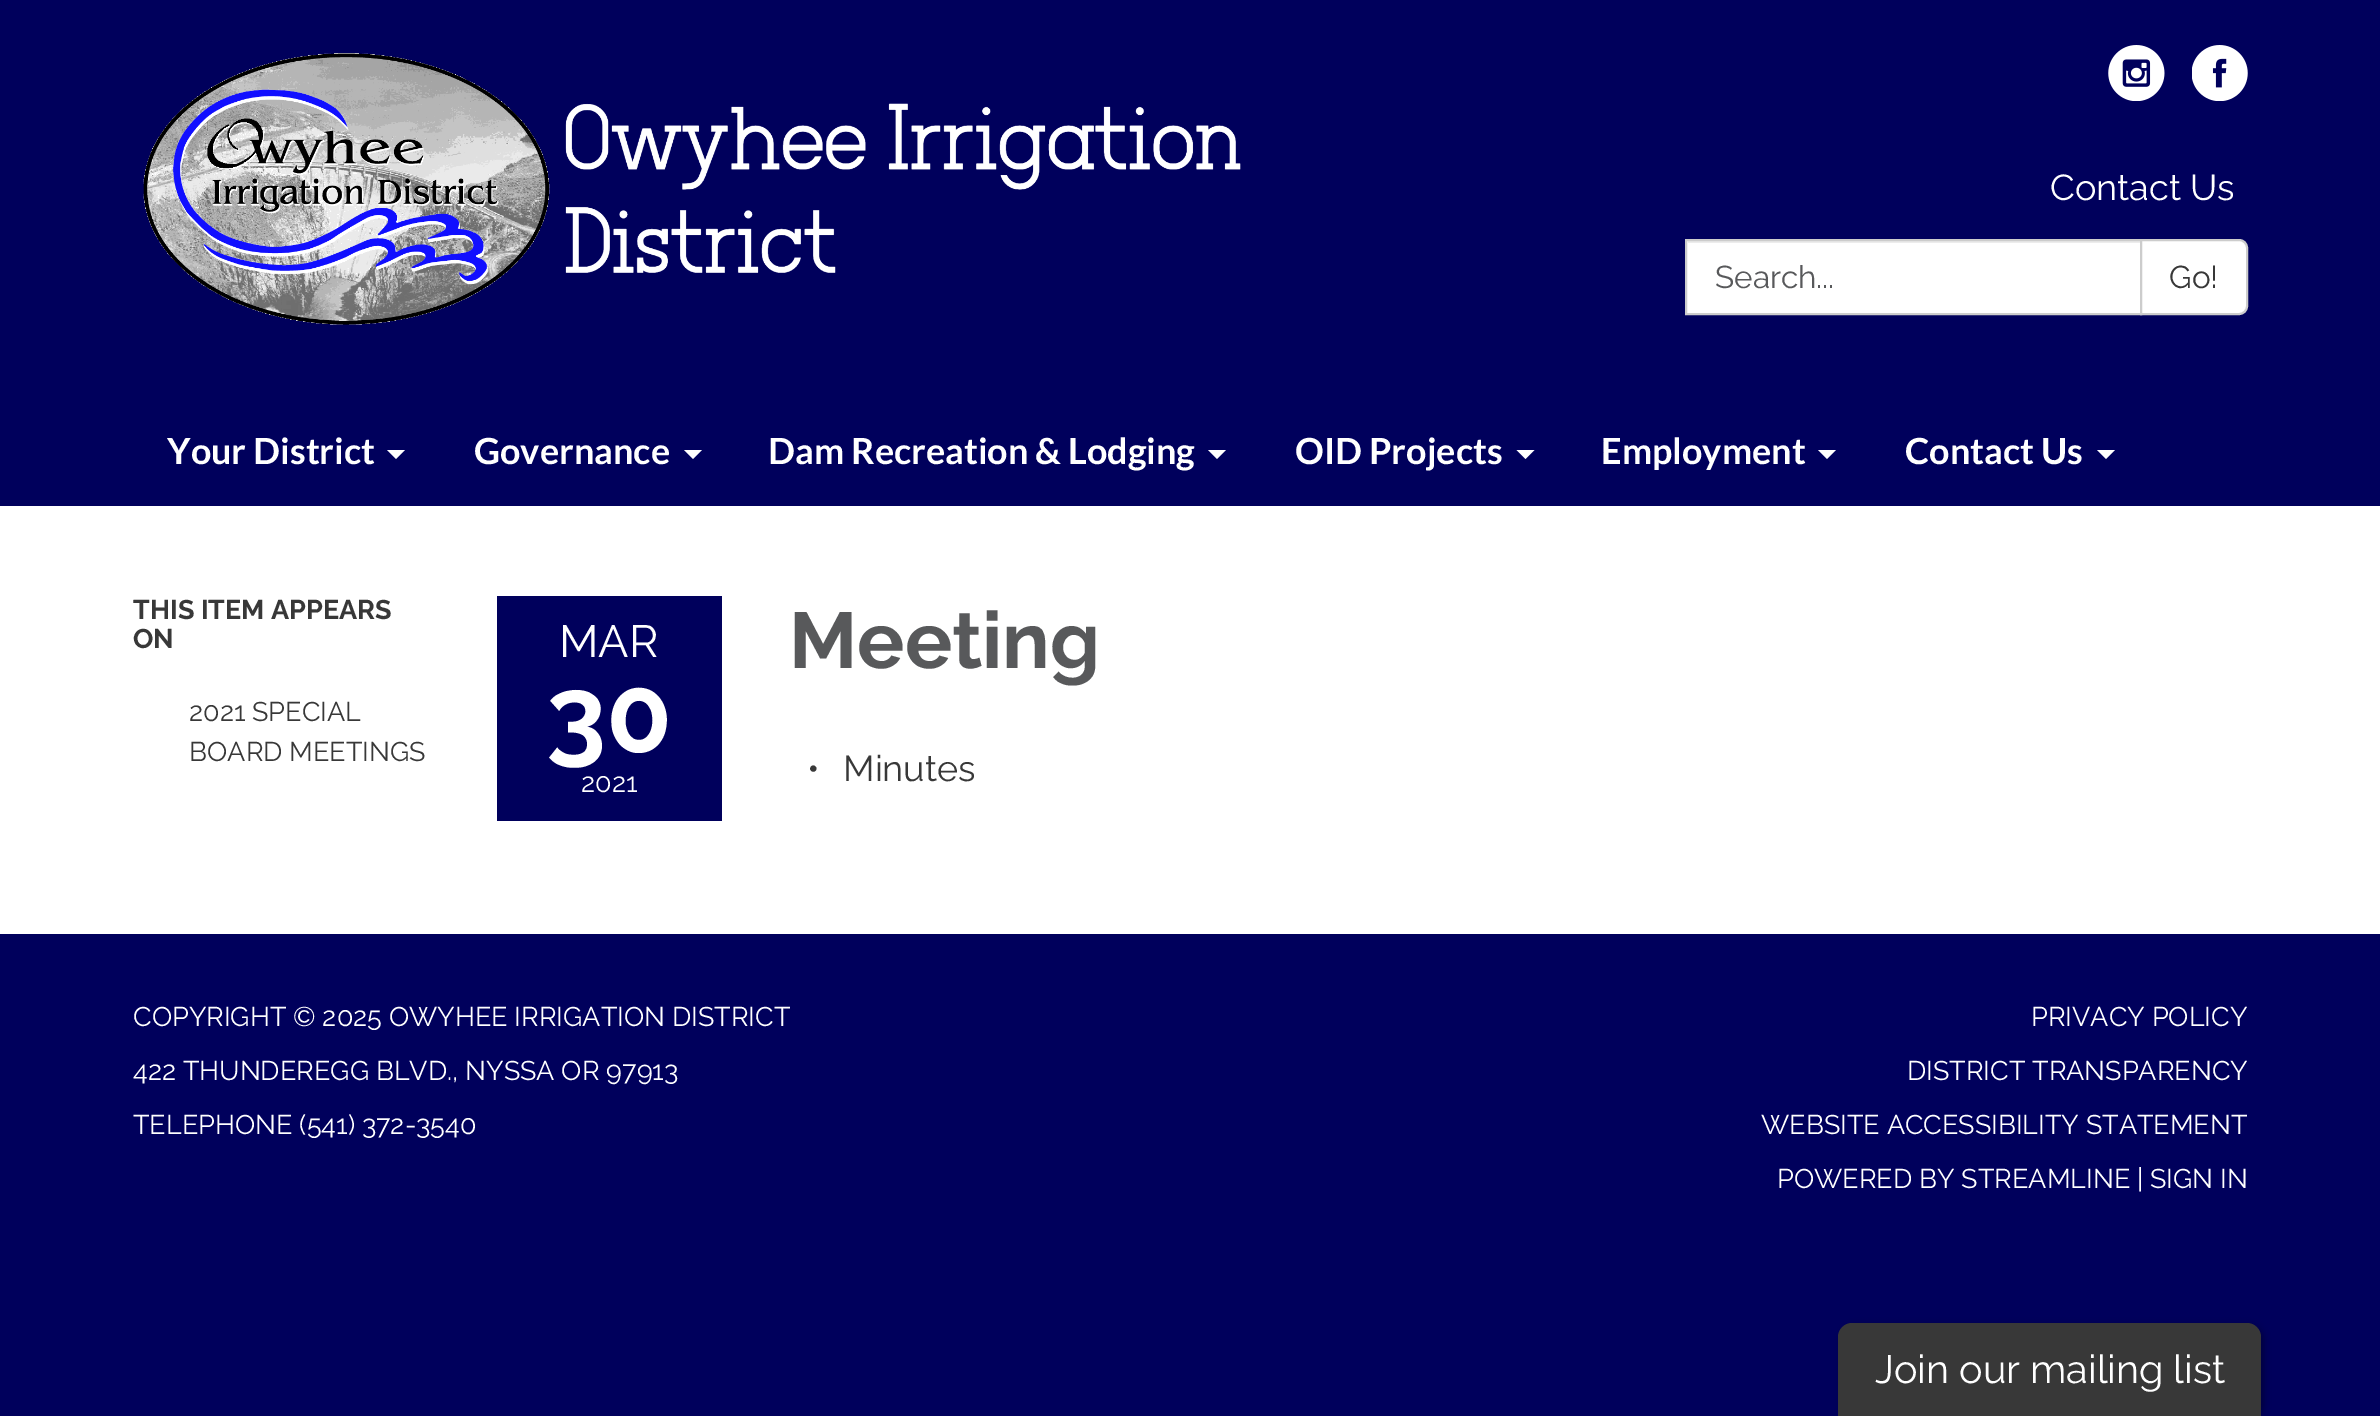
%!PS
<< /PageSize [2380 1416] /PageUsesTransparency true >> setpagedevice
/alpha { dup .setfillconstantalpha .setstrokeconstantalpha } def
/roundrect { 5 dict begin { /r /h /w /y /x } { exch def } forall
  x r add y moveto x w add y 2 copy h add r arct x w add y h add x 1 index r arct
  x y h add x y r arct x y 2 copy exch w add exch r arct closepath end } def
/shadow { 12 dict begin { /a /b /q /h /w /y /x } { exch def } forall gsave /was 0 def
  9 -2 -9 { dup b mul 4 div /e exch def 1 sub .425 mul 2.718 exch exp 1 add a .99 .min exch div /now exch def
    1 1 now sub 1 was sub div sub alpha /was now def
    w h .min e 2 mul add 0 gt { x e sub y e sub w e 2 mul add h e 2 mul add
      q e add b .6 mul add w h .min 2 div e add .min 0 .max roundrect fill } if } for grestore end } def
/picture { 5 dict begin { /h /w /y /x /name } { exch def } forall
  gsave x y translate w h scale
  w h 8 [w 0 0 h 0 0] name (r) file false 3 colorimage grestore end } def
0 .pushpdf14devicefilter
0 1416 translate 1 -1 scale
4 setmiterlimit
0 0 0.361 setrgbcolor
0 0 2380 1416 rectfill
(img1.rgb) 143 53 1098 272 picture
(img2.rgb) 2108 45 57 56 picture
(img3.rgb) 2192 45 56 56 picture
/Raleway-Regular [36 0 0 -36 0 0] selectfont
1 setgray
2050 200 moveto (Contact Us) show
1687 241 453 72 rectfill
0.925 setgray
1688 241 452 2 rectfill
0.8 setgray
2 setlinewidth
1686 240 455 74 rectstroke
/Raleway-Regular [31.5 0 0 -31.5 0 0] selectfont
0.345 0.349 0.357 setrgbcolor
1715 288 moveto (Search...) show
1 setgray
newpath 2141 240 moveto 2239 240 lineto 2243.5 240 2247 243.5 2247 248 curveto 2247 306 lineto 2247 310.5 2243.5 314 2239 314 curveto 2141 314 lineto closepath gsave fill grestore
0.8 setgray
stroke
0.22 setgray
2169 288 moveto (Go!) show
/Lato-Bold [36 0 0 -36 0 0] selectfont
1 setgray
167 464 moveto (Your District) show
newpath 387 450 moveto 405 450 lineto 396 459 lineto closepath fill
474 464 moveto (Governance) show
newpath 684 450 moveto 702 450 lineto 693 459 lineto closepath fill
768 464 moveto (Dam Recreation & Lodging) show
newpath 1208 450 moveto 1226 450 lineto 1217 459 lineto closepath fill
1295 464 moveto (OID Projects) show
newpath 1516.5 450 moveto 1534.5 450 lineto 1525.5 459 lineto closepath fill
1601 464 moveto (Employment) show
newpath 1818 450 moveto 1836 450 lineto 1827 459 lineto closepath fill
1905 464 moveto (Contact Us) show
newpath 2097 450 moveto 2115 450 lineto 2106 459 lineto closepath fill
0 506 2380 428 rectfill
/Raleway-Bold [27 0 0 -27 0 0] selectfont
0.22 setgray
133 619 moveto (THIS ITEM APPEARS) show
133 648 moveto (ON) show
/Raleway-Regular [27 0 0 -27 0 0] selectfont
189 721 moveto (2021 SPECIAL) show
189 761 moveto (BOARD MEETINGS) show
0 0 0.361 setrgbcolor
497 596 225 225 rectfill
/Raleway-Regular [45 0 0 -45 0 0] selectfont
1 setgray
559 657 moveto (MAR) show
/Raleway-Bold [108 0 0 -108 0 0] selectfont
546 752 moveto (30) show
/Raleway-Regular [27 0 0 -27 0 0] selectfont
581 792 moveto (2021) show
/Raleway-Bold [79 0 0 -79 0 0] selectfont
0.345 0.349 0.357 setrgbcolor
789 668 moveto (Meeting) show
/Raleway-Regular [36 0 0 -36 0 0] selectfont
0.22 setgray
807 781 moveto (•) show
843 781 moveto (Minutes) show
/Raleway-Regular [27 0 0 -27 0 0] selectfont
1 setgray
133 1026 moveto (COPYRIGHT © 2025 OWYHEE IRRIGATION DISTRICT) show
133 1080 moveto (422 THUNDEREGG BLVD., NYSSA OR 97913) show
133 1134 moveto (TELEPHONE \(541\) 372-3540) show
2031 1026 moveto (PRIVACY POLICY) show
1907 1080 moveto (DISTRICT TRANSPARENCY) show
1761 1134 moveto (WEBSITE ACCESSIBILITY STATEMENT) show
1777 1188 moveto (POWERED BY STREAMLINE | SIGN IN) show
0 setgray
1841 1325 423 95 14 3.5 0.3 shadow
0.22 setgray
newpath 1852 1323 moveto 2247 1323 lineto 2254.5 1323 2261 1329.5 2261 1337 curveto 2261 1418 lineto 1838 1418 lineto 1838 1337 lineto 1838 1329.5 1844.5 1323 1852 1323 curveto closepath fill
/Raleway-Regular [39.5 0 0 -39.5 0 0] selectfont
1 setgray
1875 1383 moveto (Join our mailing list) show
.poppdf14devicefilter showpage
